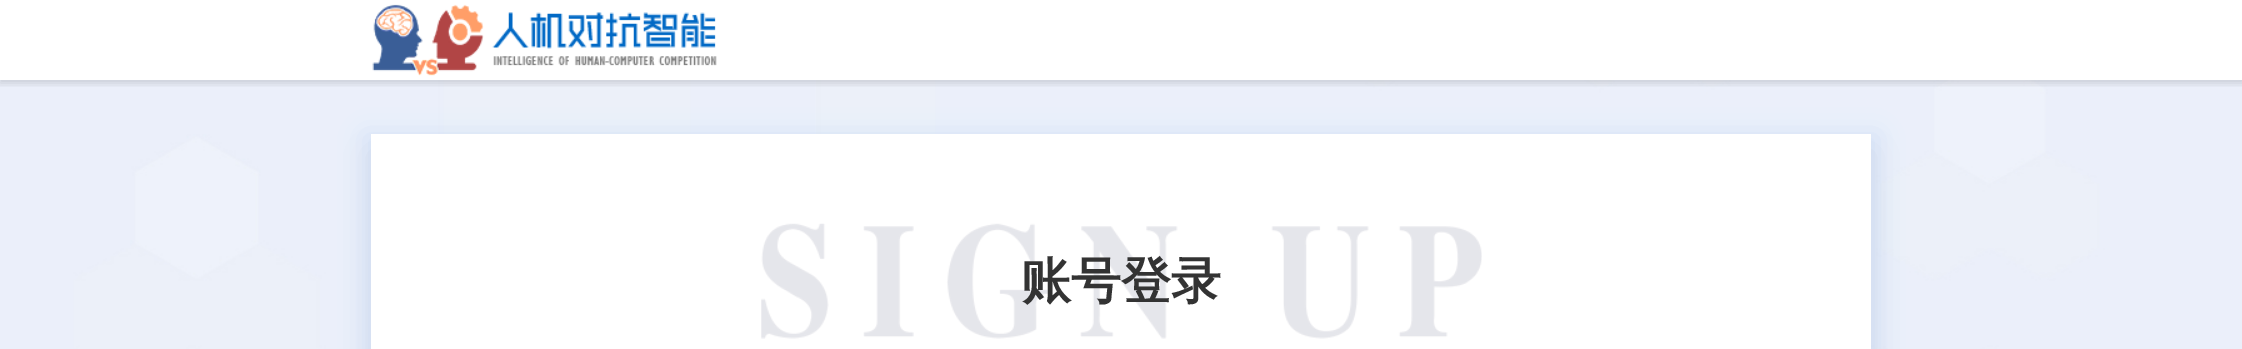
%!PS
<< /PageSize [2242 349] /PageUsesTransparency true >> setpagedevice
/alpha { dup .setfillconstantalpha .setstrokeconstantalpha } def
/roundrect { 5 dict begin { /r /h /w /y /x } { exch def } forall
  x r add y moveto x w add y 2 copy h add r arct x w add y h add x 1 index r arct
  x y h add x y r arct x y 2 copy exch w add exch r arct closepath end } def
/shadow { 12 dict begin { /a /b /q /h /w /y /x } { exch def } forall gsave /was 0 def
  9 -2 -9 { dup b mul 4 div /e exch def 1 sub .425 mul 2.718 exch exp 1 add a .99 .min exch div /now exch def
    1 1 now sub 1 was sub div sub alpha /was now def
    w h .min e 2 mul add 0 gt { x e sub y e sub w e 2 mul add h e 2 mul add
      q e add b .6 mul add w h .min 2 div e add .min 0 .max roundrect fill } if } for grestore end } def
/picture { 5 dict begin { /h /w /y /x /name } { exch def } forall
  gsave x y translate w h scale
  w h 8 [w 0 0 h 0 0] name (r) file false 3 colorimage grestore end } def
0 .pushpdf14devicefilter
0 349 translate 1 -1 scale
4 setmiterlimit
1 setgray
0 0 2242 349 rectfill
(img2.rgb) 0 80 2242 269 picture
gsave
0 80 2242 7 rectclip
0 setgray
0 3 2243 80 0 4 0.15 shadow
grestore
(img1.rgb) 372 4 345 72 picture
0 setgray
369 151 1505 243 0 15 0.05 shadow
0.157 0.471 1 setrgbcolor
365 135 1513 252 0 12.5 0.1 shadow
1 setgray
371 134 1500 215 rectfill
(img3.rgb) 761 223 721 116 picture
/WenQuanYiZenHei-Bold [50 0 0 -50 0 0] selectfont
0.2 setgray
1021 298 moveto (账号登录) show
.poppdf14devicefilter showpage
